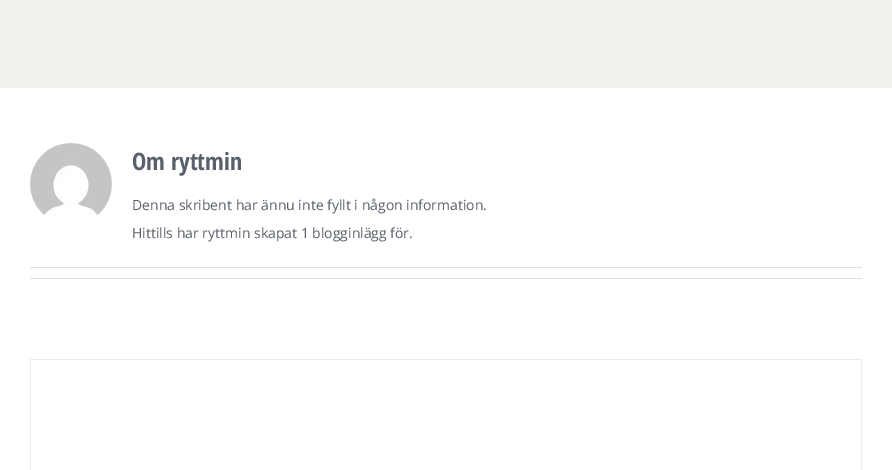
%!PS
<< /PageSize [892 470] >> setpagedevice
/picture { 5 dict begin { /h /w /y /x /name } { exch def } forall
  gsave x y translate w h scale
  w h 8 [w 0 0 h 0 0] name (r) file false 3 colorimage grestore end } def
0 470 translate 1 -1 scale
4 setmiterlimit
1 setgray
0 0 892 470 rectfill
0.945 0.941 0.925 setrgbcolor
0 0 892 88 rectfill
(img1.rgb) 30 143 82 72 picture
/OpenSansCondensed-Bold [24 0 0 -24 0 0] selectfont
0.349 0.373 0.42 setrgbcolor
132 170 moveto (Om ryttmin) show
/OpenSans-Regular [14 0 0 -14 0 0] selectfont
132 210 moveto (Denna skribent har ännu inte fyllt i någon information.) show
132 238 moveto (Hittills har ryttmin skapat 1 blogginlägg för.) show
0.878 0.871 0.871 setrgbcolor
30 267 832 1 rectfill
30 278 832 1 rectfill
0.922 0.918 0.918 setrgbcolor
30 359 832 1 rectfill
861 359 1 111 rectfill
30 359 1 111 rectfill
showpage
